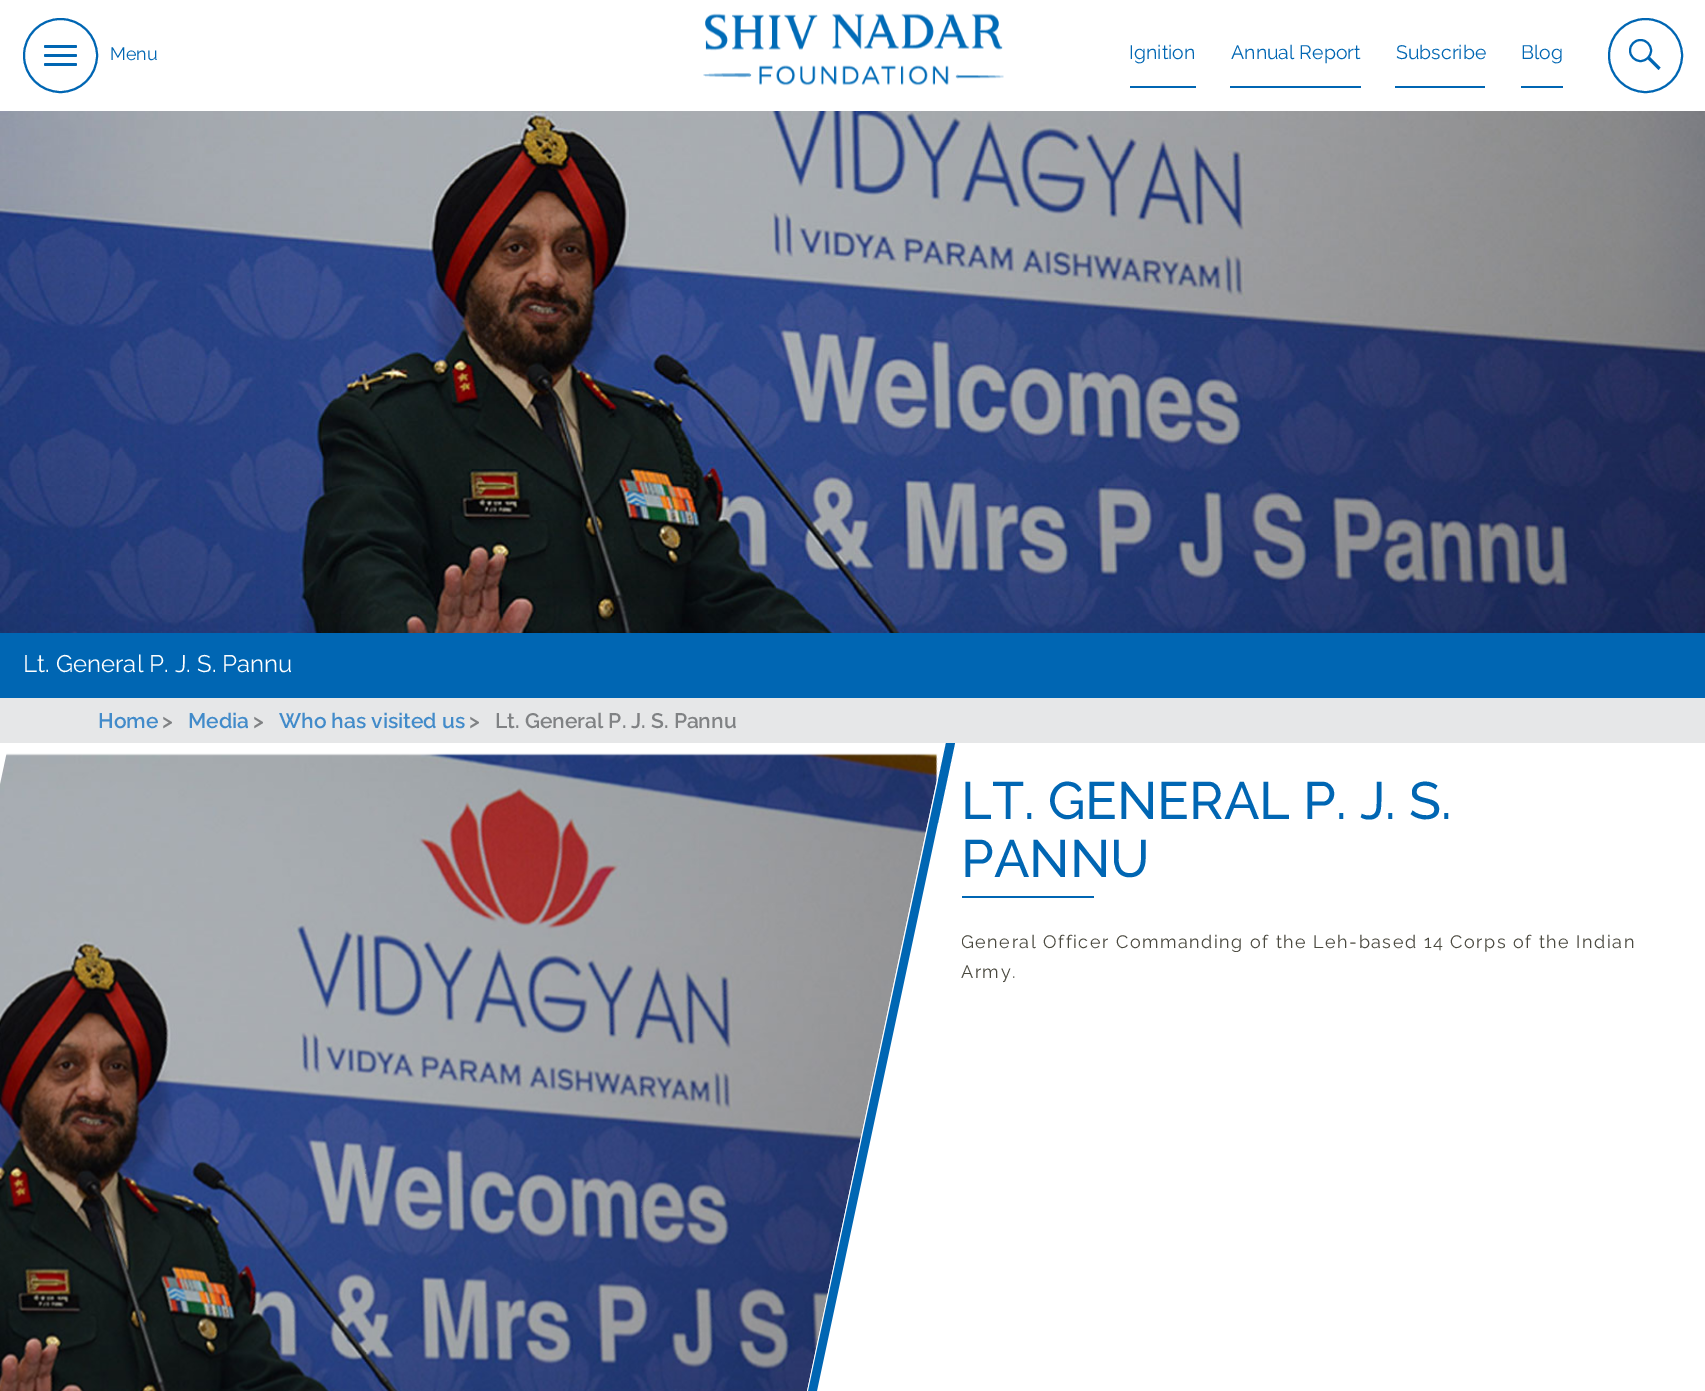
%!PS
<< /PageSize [1705 1391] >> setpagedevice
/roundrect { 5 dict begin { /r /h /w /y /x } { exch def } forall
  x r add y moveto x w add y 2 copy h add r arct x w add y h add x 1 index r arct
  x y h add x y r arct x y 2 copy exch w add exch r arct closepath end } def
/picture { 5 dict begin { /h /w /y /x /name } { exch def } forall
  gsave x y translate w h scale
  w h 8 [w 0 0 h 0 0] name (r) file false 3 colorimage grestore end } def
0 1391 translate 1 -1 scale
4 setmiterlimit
1 setgray
0 0 1705 1391 rectfill
0 0.4 0.702 setrgbcolor
2 setlinewidth
newpath 60.5 55.5 36.5 0 360 arc closepath stroke
44 45 33 3 1.5 roundrect fill
44 54 33 3 1.5 roundrect fill
44 63 33 3 1.5 roundrect fill
/Raleway-Regular [18 0 0 -18 0 0] selectfont
110 60 moveto (Menu) show
(img1.rgb) 703 13 301 73 picture
1130 86 66 2 rectfill
/Raleway-Regular [19.5 0 0 -19.5 0 0] selectfont
1129 59 moveto (Ignition) show
1230 86 131 2 rectfill
1231 59 moveto (Annual Report) show
1395 86 90 2 rectfill
1396 59 moveto (Subscribe) show
1521 86 42 2 rectfill
1521 59 moveto (Blog) show
newpath 1645.5 55.5 36.5 0 360 arc closepath stroke
newpath 1640.5 50.5 10.5 0 360 arc closepath stroke
newpath 1649 56 moveto 1660.5 67.5 lineto 1658.5 70 lineto 1647 58.5 lineto closepath fill
0 633 1705 65 rectfill
(img2.rgb) 0 111 1705 522 picture
/Raleway-Regular [24 0 0 -24 0 0] selectfont
1 setgray
23 672 moveto (Lt. General P. J. S. Pannu) show
0.902 0.906 0.91 setrgbcolor
0 698 1705 45 rectfill
/Raleway-SemiBold [21 0 0 -21 0 0] selectfont
0.259 0.545 0.792 setrgbcolor
98 728 moveto (Home) show
0.502 0.51 0.518 setrgbcolor
162 728 moveto (>) show
0.259 0.545 0.792 setrgbcolor
188 728 moveto (Media) show
0.502 0.51 0.518 setrgbcolor
253 728 moveto (>) show
0.259 0.545 0.792 setrgbcolor
279 728 moveto (Who has visited us) show
0.502 0.51 0.518 setrgbcolor
469 728 moveto (>) show
495 728 moveto (Lt. General P. J. S. Pannu) show
0 0.4 0.702 setrgbcolor
newpath 946 743 moveto 955 743 lineto 751 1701 lineto 742 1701 lineto closepath fill
(img3.rgb) 0 753 938 638 picture
/Raleway-Medium [52.5 0 0 -52.5 0 0] selectfont
961 819 moveto (LT. GENERAL P. J. S.) show
961 877 moveto (PANNU) show
962 896 132 2 rectfill
gsave
962 927 691 83 rectclip
/Raleway-Regular [18 0 0 -18 0 0] selectfont
0.29 0.286 0.247 setrgbcolor
961 948 moveto 1.5 0 (General Officer Commanding of the Leh-based 14 Corps of the Indian) ashow
grestore
/Raleway-Regular [18 0 0 -18 0 0] selectfont
0.29 0.286 0.247 setrgbcolor
961 978 moveto 1.5 0 (Army.) ashow
showpage
